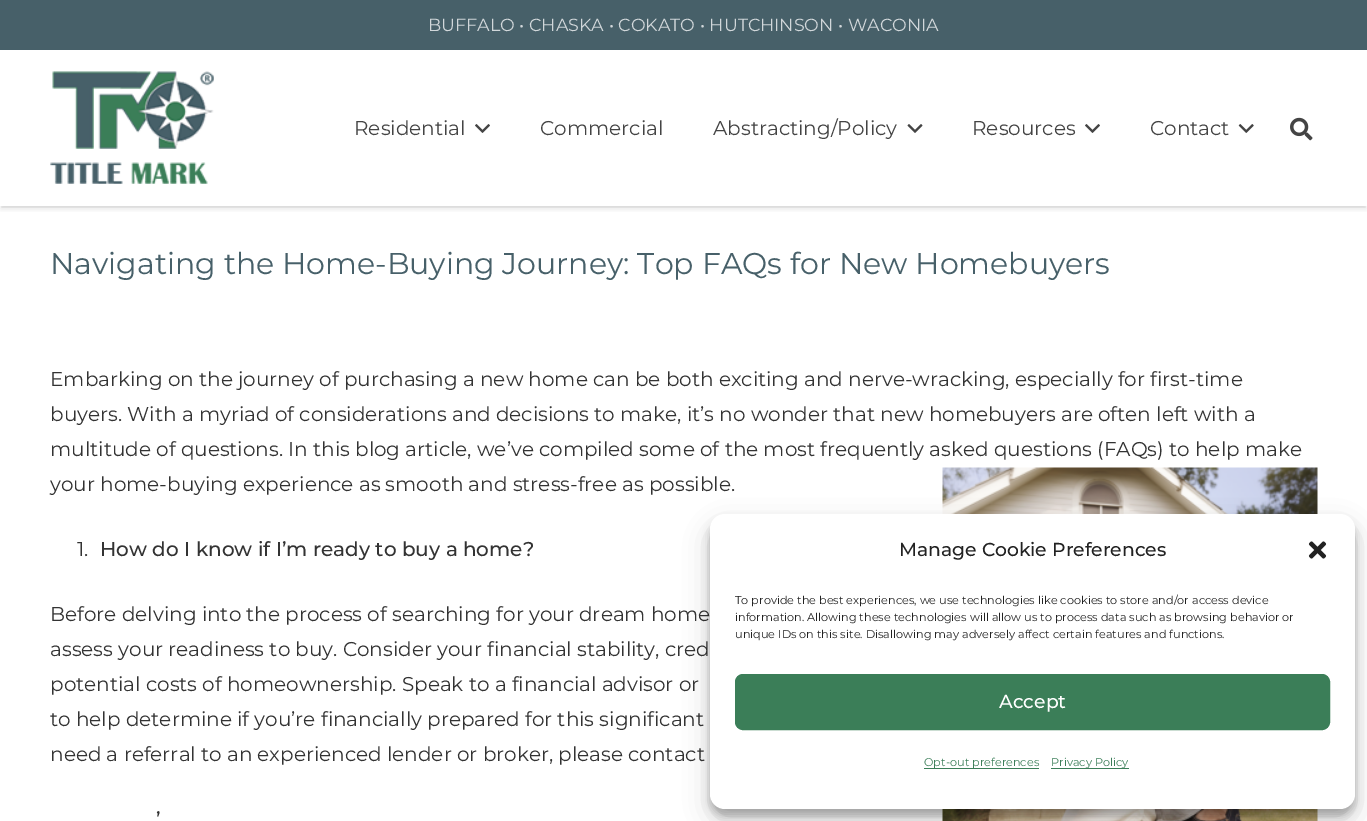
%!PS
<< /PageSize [1367 821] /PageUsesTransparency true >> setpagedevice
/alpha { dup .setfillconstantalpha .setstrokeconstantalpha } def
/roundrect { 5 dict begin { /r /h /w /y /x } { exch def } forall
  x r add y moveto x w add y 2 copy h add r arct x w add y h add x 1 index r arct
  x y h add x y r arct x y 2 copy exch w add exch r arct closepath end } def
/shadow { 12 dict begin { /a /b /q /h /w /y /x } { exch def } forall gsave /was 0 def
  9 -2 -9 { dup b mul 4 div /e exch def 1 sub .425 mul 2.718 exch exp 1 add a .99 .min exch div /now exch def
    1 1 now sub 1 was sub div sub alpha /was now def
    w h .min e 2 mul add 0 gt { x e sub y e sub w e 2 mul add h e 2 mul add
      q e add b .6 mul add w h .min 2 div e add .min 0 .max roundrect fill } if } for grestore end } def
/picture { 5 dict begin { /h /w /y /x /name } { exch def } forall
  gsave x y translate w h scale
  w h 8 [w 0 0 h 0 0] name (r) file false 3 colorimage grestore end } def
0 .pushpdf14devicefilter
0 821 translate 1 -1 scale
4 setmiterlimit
1 setgray
0 0 1367 821 rectfill
0.278 0.376 0.412 setrgbcolor
0 0 1367 50 rectfill
/Montserrat-Regular [17.5 0 0 -17.5 0 0] selectfont
0.82 0.843 0.855 setrgbcolor
428 31 moveto (BUFFALO • CHASKA • COKATO • HUTCHINSON • WACONIA) show
gsave
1 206 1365 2 rectclip
0 setgray
1 54 1365 154 0 0.5 0.05 shadow
grestore
gsave
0 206 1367 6 rectclip
0 setgray
1 55 1365 154 0 3 0.1 shadow
grestore
(img1.rgb) 50 71 164 113 picture
/Montserrat-Regular [20 0 0 -20 0 0] selectfont
0.267 setgray
354 135 moveto (Residential) show
(img2.rgb) 475 124 15 9 picture
540 135 moveto (Commercial) show
713 135 moveto (Abstracting/Policy) show
(img3.rgb) 907 124 16 9 picture
972 135 moveto (Resources) show
(img2.rgb) 1085 124 15 9 picture
1150 135 moveto (Contact) show
(img4.rgb) 1238 124 16 9 picture
(img5.rgb) 1290 117 23 24 picture
/Montserrat-Regular [30 0 0 -30 0 0] selectfont
0.278 0.376 0.412 setrgbcolor
50 274 moveto (Navigating the Home-Buying Journey: Top FAQs for New Homebuyers) show
/Montserrat-Regular [20 0 0 -20 0 0] selectfont
0.2 setgray
50 386 moveto (Embarking on the journey of purchasing a new home can be both exciting and nerve-wracking, especially for first-time) show
50 421 moveto (buyers. With a myriad of considerations and decisions to make, it’s no wonder that new homebuyers are often left with a) show
50 456 moveto (multitude of questions. In this blog article, we’ve compiled some of the most frequently asked questions \(FAQs\) to help make) show
50 491 moveto (your home-buying experience as smooth and stress-free as possible.) show
(img6.rgb) 942 467 376 354 picture
77 556 moveto (1.) show
/Montserrat-Medium [20 0 0 -20 0 0] selectfont
100 556 moveto (How do I know if I’m ready to buy a home?) show
/Montserrat-Regular [20 0 0 -20 0 0] selectfont
50 621 moveto (Before delving into the process of searching for your dream home) show
50 656 moveto (assess your readiness to buy. Consider your financial stability, cred) show
50 691 moveto (potential costs of homeownership. Speak to a financial advisor or) show
50 726 moveto (to help determine if you’re financially prepared for this significant) show
50 761 moveto (need a referral to an experienced lender or broker, please contact) show
/Montserrat-Medium [20 0 0 -20 0 0] selectfont
156 826 moveto (’) show
0 setgray
710 521 645 295 15 4 0.23 shadow
710 526 645 295 15 12.5 0.19 shadow
1 setgray
710 514 645 295 15 roundrect fill
/Montserrat-Medium [18.75 0 0 -18.75 0 0] selectfont
0.133 setgray
899 556 moveto (Manage Cookie Preferences) show
(img7.rgb) 1308 541 19 18 picture
/Montserrat-Regular [11.25 0 0 -11.25 0 0] selectfont
735 604 moveto (To provide the best experiences, we use technologies like cookies to store and/or access device) show
735 621 moveto (information. Allowing these technologies will allow us to process data such as browsing behavior or) show
735 638 moveto (unique IDs on this site. Disallowing may adversely affect certain features and functions.) show
0.231 0.494 0.345 setrgbcolor
735.5 674.5 594 55 7.5 roundrect gsave fill grestore
stroke
/Montserrat-Medium [18.75 0 0 -18.75 0 0] selectfont
1 setgray
999 708 moveto (Accept) show
0.231 0.494 0.345 setrgbcolor
924 768 115 1 rectfill
/Montserrat-Regular [11.25 0 0 -11.25 0 0] selectfont
924 766 moveto (Opt-out preferences) show
1051 768 78 1 rectfill
1051 766 moveto (Privacy Policy) show
.poppdf14devicefilter showpage
